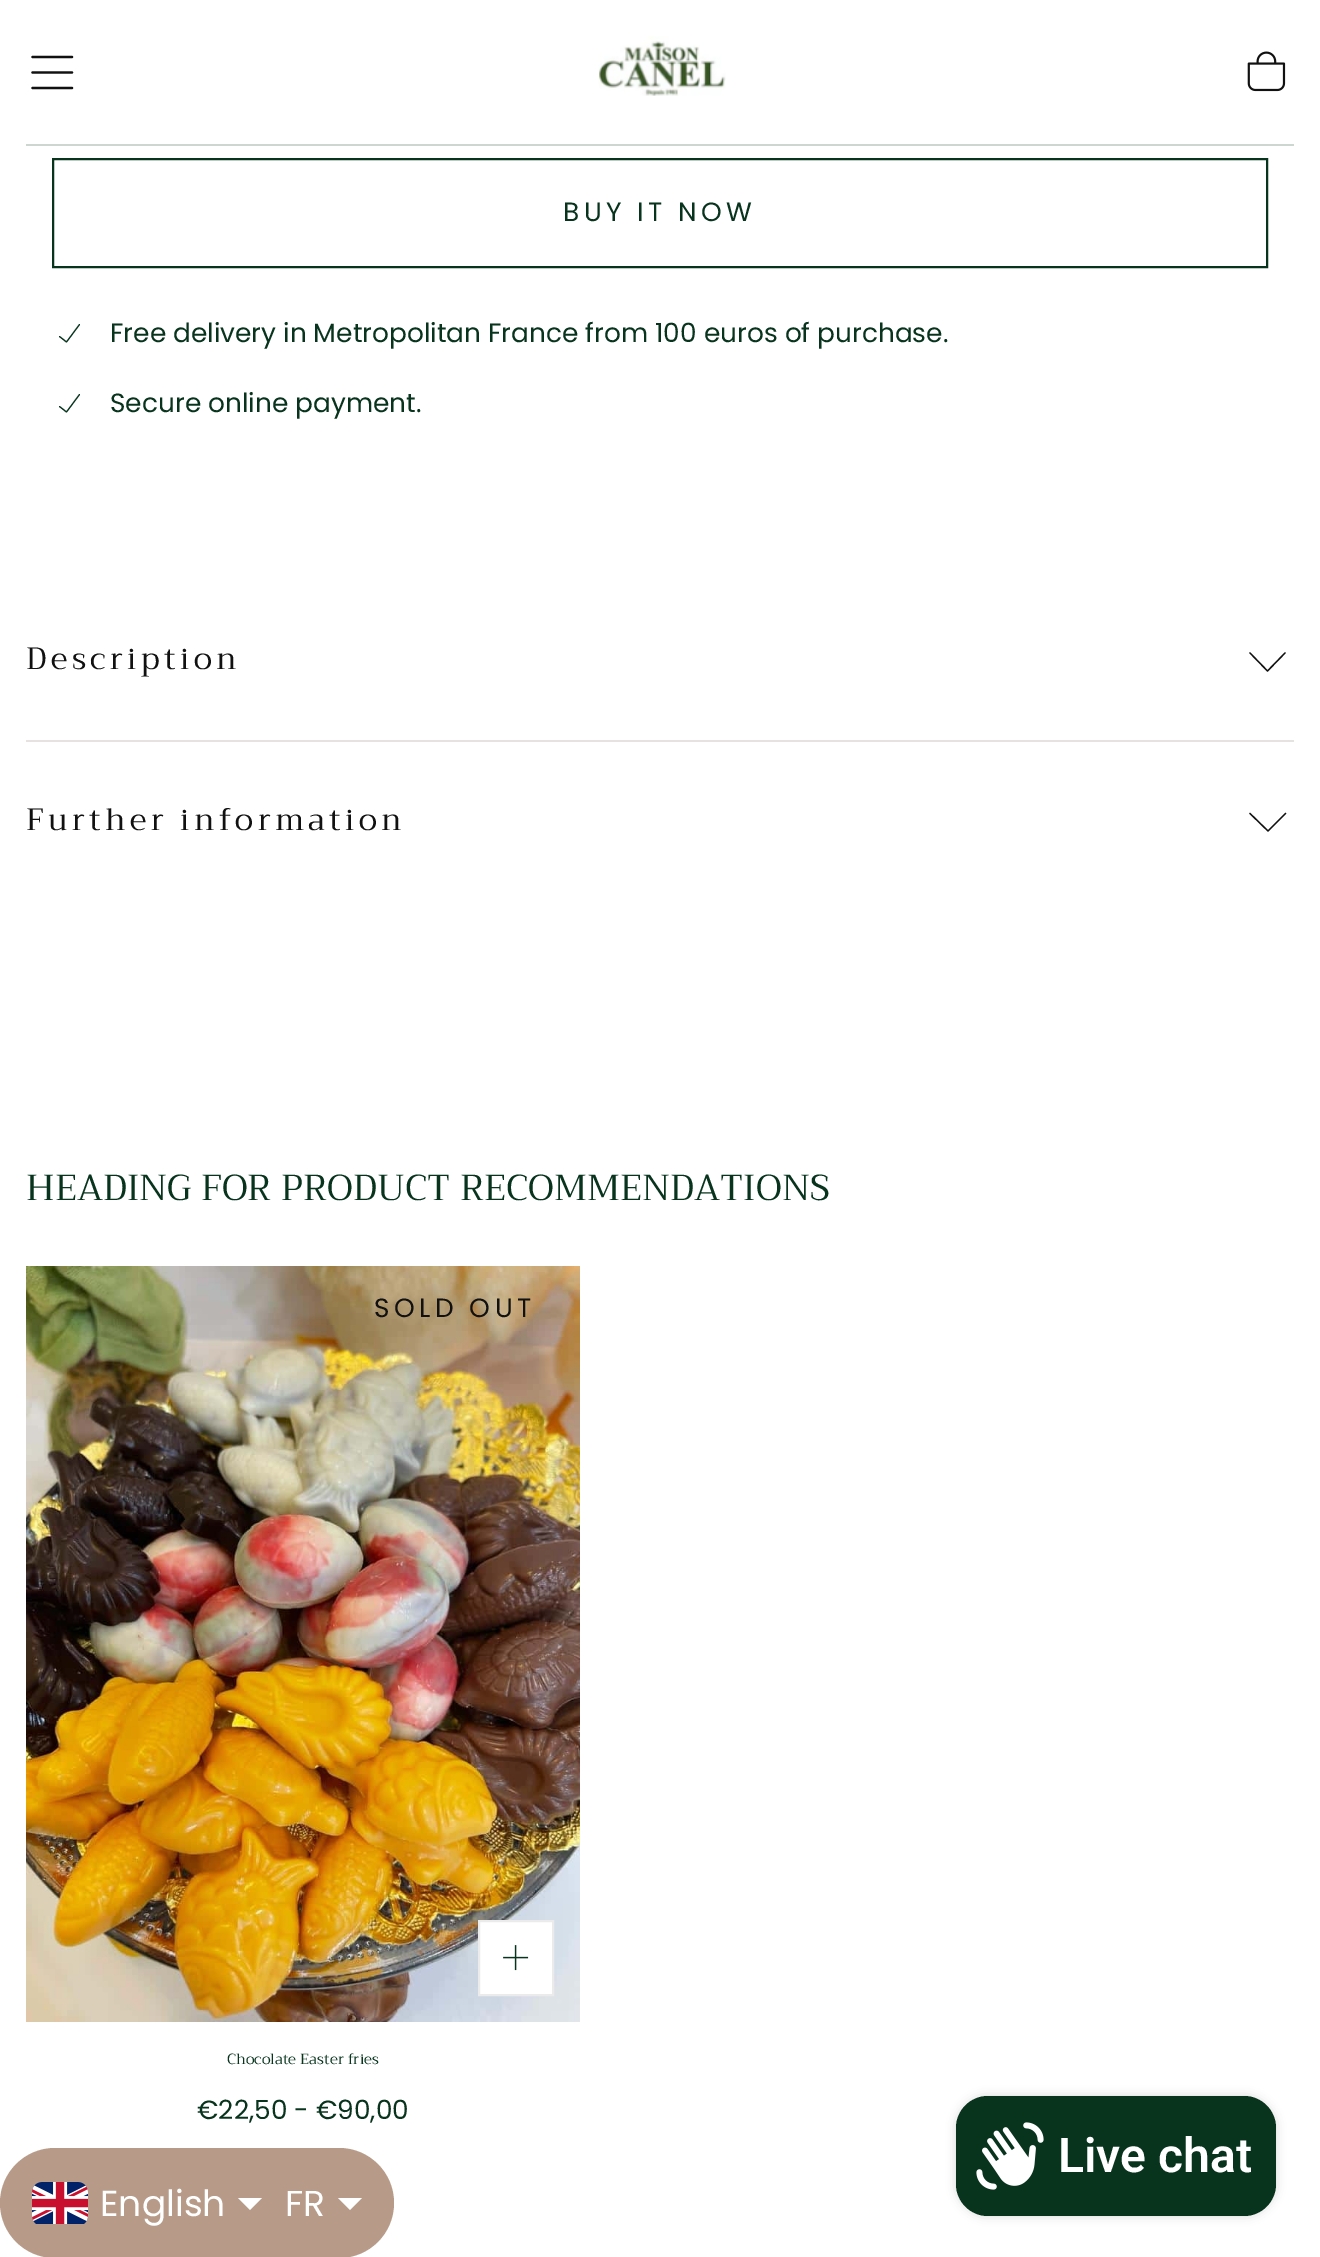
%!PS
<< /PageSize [1320 2257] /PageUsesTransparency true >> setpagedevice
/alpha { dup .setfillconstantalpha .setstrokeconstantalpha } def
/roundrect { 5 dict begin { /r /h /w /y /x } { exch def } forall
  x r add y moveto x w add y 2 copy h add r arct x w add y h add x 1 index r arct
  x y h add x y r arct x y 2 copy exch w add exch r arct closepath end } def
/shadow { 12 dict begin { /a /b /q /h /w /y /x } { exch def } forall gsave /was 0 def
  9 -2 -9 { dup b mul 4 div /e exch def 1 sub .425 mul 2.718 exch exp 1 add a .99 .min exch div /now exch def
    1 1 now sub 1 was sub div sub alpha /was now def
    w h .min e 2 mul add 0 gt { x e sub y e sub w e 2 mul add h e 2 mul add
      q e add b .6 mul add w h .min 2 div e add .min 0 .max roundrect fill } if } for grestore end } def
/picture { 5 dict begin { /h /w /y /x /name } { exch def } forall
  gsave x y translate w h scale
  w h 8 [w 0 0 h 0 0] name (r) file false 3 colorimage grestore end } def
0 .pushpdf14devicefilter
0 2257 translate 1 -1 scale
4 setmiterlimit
1 setgray
0 0 1320 2257 rectfill
0.067 setgray
2.2 setlinewidth
1 setlinecap
newpath 32.5 72.5 moveto 72 72.5 lineto 32.5 57 moveto 72 57 lineto 32.5 88 moveto 72 88 lineto stroke
(img1.rgb) 598 36 128 60 picture
(img2.rgb) 1247 51 39 41 picture
0.808 0.839 0.824 setrgbcolor
26 144 1268 2 rectfill
0.031 0.204 0.118 setrgbcolor
2 setlinewidth
0 setlinecap
53 159 1214 108 rectstroke
/Poppins-Regular [26.4 0 0 -26.4 0 0] selectfont
563 221 moveto 4.4 0 (BUY IT NOW) ashow
1.1 setlinewidth
1 setlinecap
1 setlinejoin
newpath 59.5 336.5 moveto 66.5 342 lineto 79.5 324.5 lineto stroke
110 342 moveto (Free delivery in Metropolitan France from 100 euros of purchase.) show
newpath 59.5 406.5 moveto 66.5 412 lineto 79.5 394.5 lineto stroke
110 412 moveto (Secure online payment.) show
/Trirong-Regular [30.75 0 0 -30.75 0 0] selectfont
0.067 setgray
26 669 moveto 4.4 0 (Description) ashow
1.3 setlinewidth
newpath 1285 653 moveto 1267.5 671 lineto 1250 653 lineto stroke
0.902 0.886 0.882 setrgbcolor
26 740 1268 2 rectfill
0.067 setgray
26 830 moveto 4.4 0 (Further information) ashow
newpath 1285.5 813.5 moveto 1268 831 lineto 1250 813.5 lineto stroke
/Trirong-Regular [36.1 0 0 -36.1 0 0] selectfont
0.031 0.204 0.118 setrgbcolor
26 1200 moveto (HEADING FOR PRODUCT RECOMMENDATIONS) show
(img3.rgb) 26 1266 554 756 picture
/Poppins-Regular [26.4 0 0 -26.4 0 0] selectfont
0.067 setgray
374 1317 moveto 4.4 0 (SOLD OUT) ashow
1 setgray
newpath 479 1921 moveto 553 1921 lineto 553 1995 lineto 479 1995 lineto closepath gsave fill grestore
0.922 setgray
2 setlinewidth
0 setlinecap
0 setlinejoin
stroke
(img4.rgb) 503 1945 26 26 picture
/Trirong-Regular [14.75 0 0 -14.75 0 0] selectfont
0.031 0.204 0.118 setrgbcolor
227 2064 moveto (Chocolate Easter fries) show
/Poppins-Regular [26.4 0 0 -26.4 0 0] selectfont
197 2119 moveto (€22,50 - €90,00) show
0 setgray
956 2096 320 120 32 5 0.15 shadow
0.031 0.204 0.118 setrgbcolor
956 2096 320 120 32 roundrect fill
(img5.rgb) 976 2122 68 68 picture
/Roboto-SemiBold [48 0 0 -48 0 0] selectfont
1 setgray
1058 2172 moveto (Live chat) show
0.718 0.608 0.533 setrgbcolor
0 2148 394 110 55 roundrect fill
(img6.rgb) 32 2182 56 42 picture
/Poppins-Regular [36 0 0 -36 0 0] selectfont
1 setgray
100 2216 moveto (English) show
newpath 238 2198 moveto 262 2198 lineto 250 2210 lineto closepath fill
285 2216 moveto (FR) show
newpath 338 2198 moveto 362 2198 lineto 350 2210 lineto closepath fill
.poppdf14devicefilter showpage
